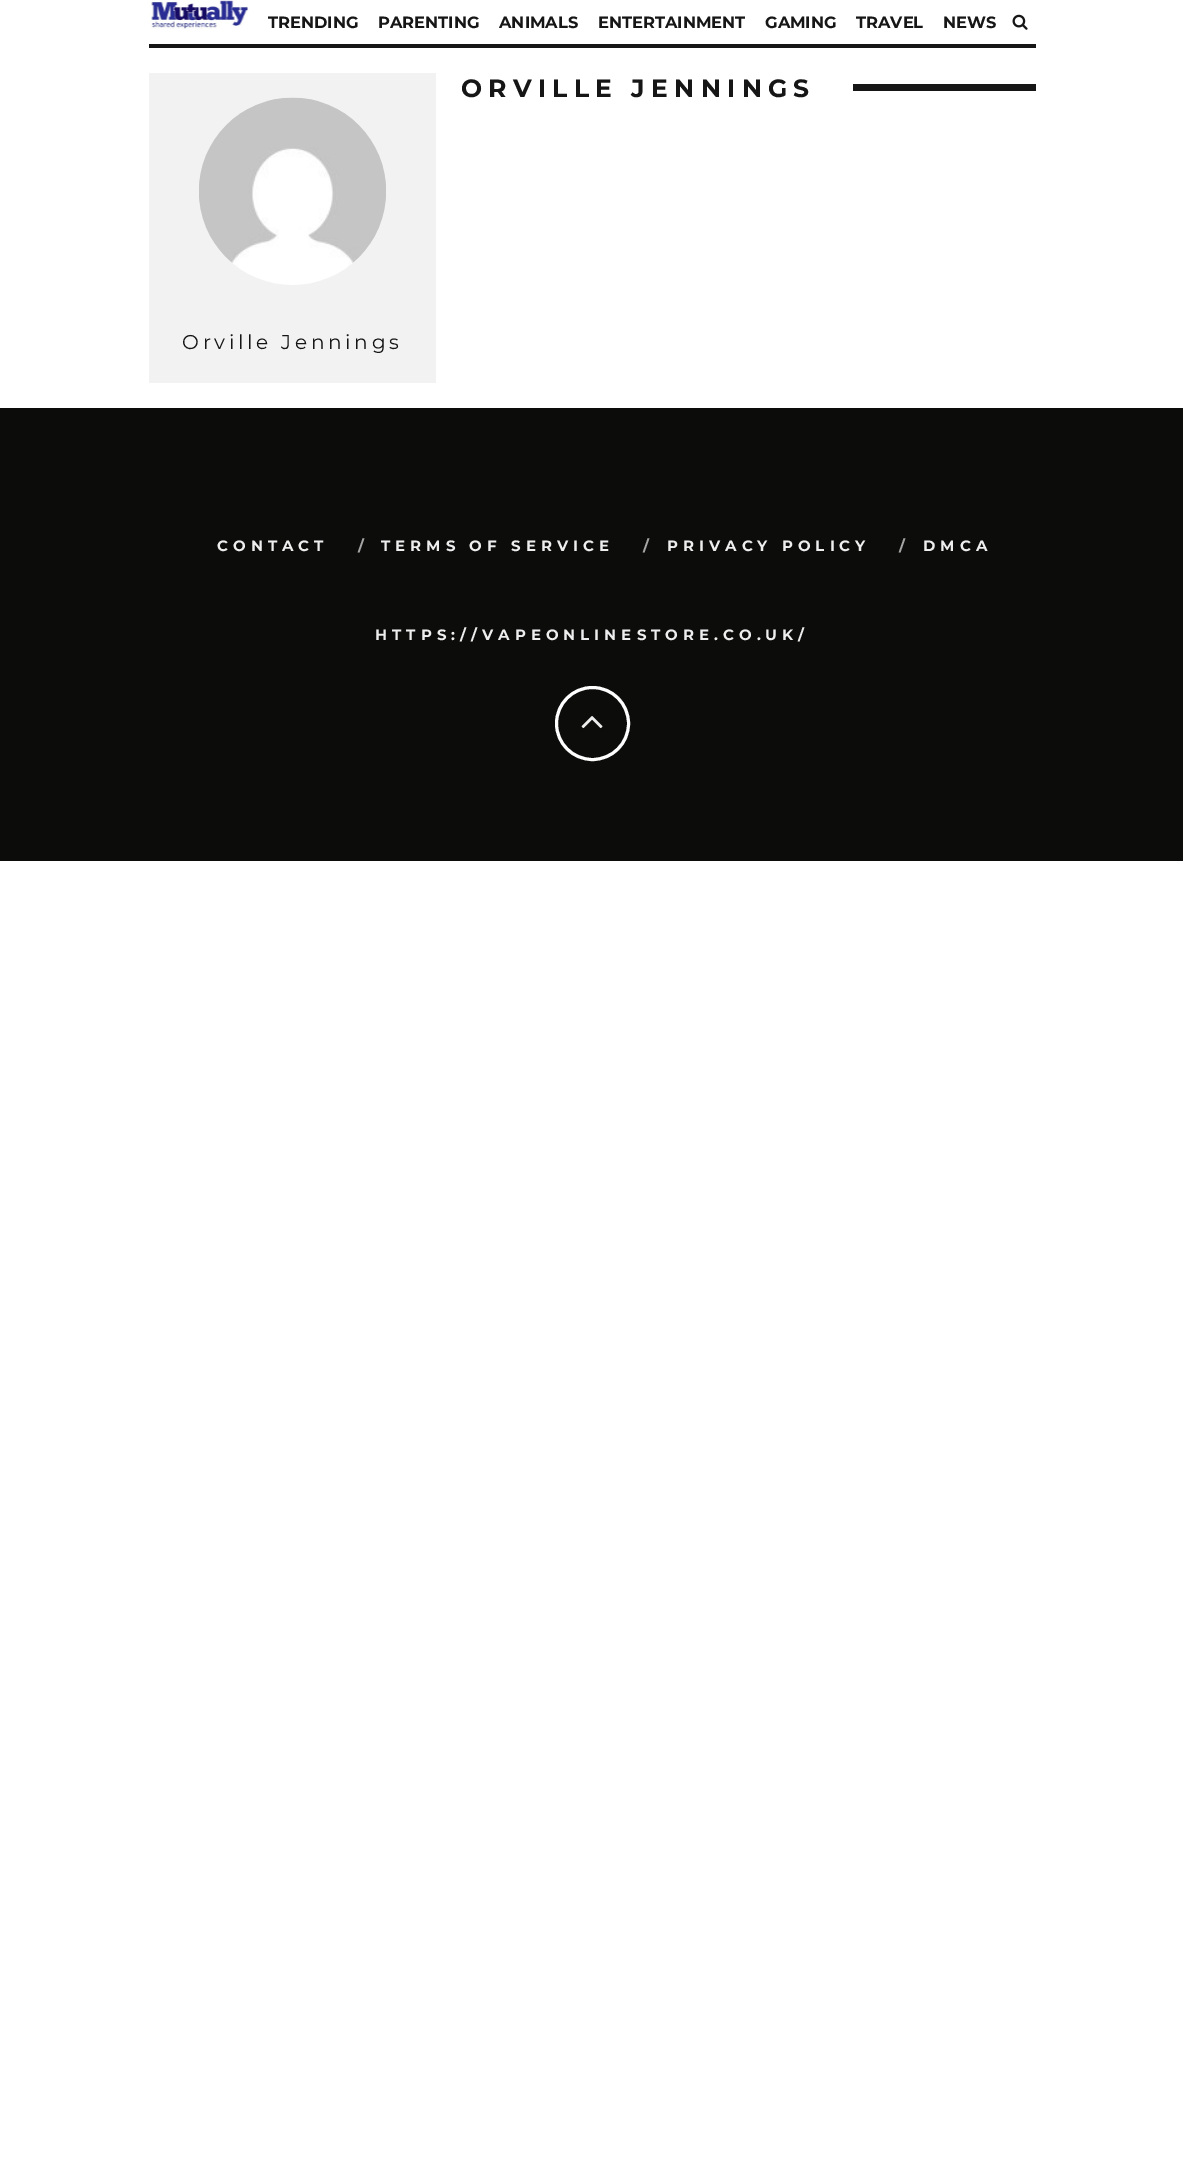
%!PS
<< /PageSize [1183 2160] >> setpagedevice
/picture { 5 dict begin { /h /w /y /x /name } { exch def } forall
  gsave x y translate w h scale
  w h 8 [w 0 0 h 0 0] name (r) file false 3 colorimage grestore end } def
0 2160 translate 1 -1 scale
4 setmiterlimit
1 setgray
0 0 1183 2160 rectfill
0.086 setgray
149 44 887 4 rectfill
(img1.rgb) 149 0 100 29 picture
/Montserrat-Bold [16.25 0 0 -16.25 0 0] selectfont
268 28 moveto (TRENDING) show
378 28 moveto (PARENTING) show
499 28 moveto (ANIMALS) show
598 28 moveto (ENTERTAINMENT) show
765 28 moveto (GAMING) show
856 28 moveto (TRAVEL) show
943 28 moveto (NEWS) show
(img2.rgb) 1012 14 16 16 picture
/Montserrat-Bold [25 0 0 -25 0 0] selectfont
461 97 moveto 6.25 0 (ORVILLE JENNINGS) ashow
853 84 183 7 rectfill
0.949 setgray
149 73 287 310 rectfill
(img3.rgb) 199 97 187 188 picture
/Montserrat-Regular [20 0 0 -20 0 0] selectfont
0.086 setgray
182 349 moveto 3.75 0 (Orville Jennings) ashow
0.047 0.047 0.043 setrgbcolor
0 408 1183 453 rectfill
/Montserrat-Bold [15 0 0 -15 0 0] selectfont
0.933 setgray
217 551 moveto 5 0 (CONTACT) ashow
0.651 setgray
358 551 moveto 5 0 (/) ashow
0.933 setgray
381 551 moveto 5 0 (TERMS OF SERVICE) ashow
0.651 setgray
643 551 moveto 5 0 (/) ashow
0.933 setgray
667 551 moveto 5 0 (PRIVACY POLICY) ashow
0.651 setgray
899 551 moveto 5 0 (/) ashow
0.933 setgray
923 551 moveto 5 0 (DMCA) ashow
375 640 moveto 5 0 (HTTPS://VAPEONLINESTORE.CO.UK/) ashow
1 setgray
3 setlinewidth
newpath 592.5 723.5 36 0 360 arc closepath stroke
(img4.rgb) 581 716 22 13 picture
showpage
